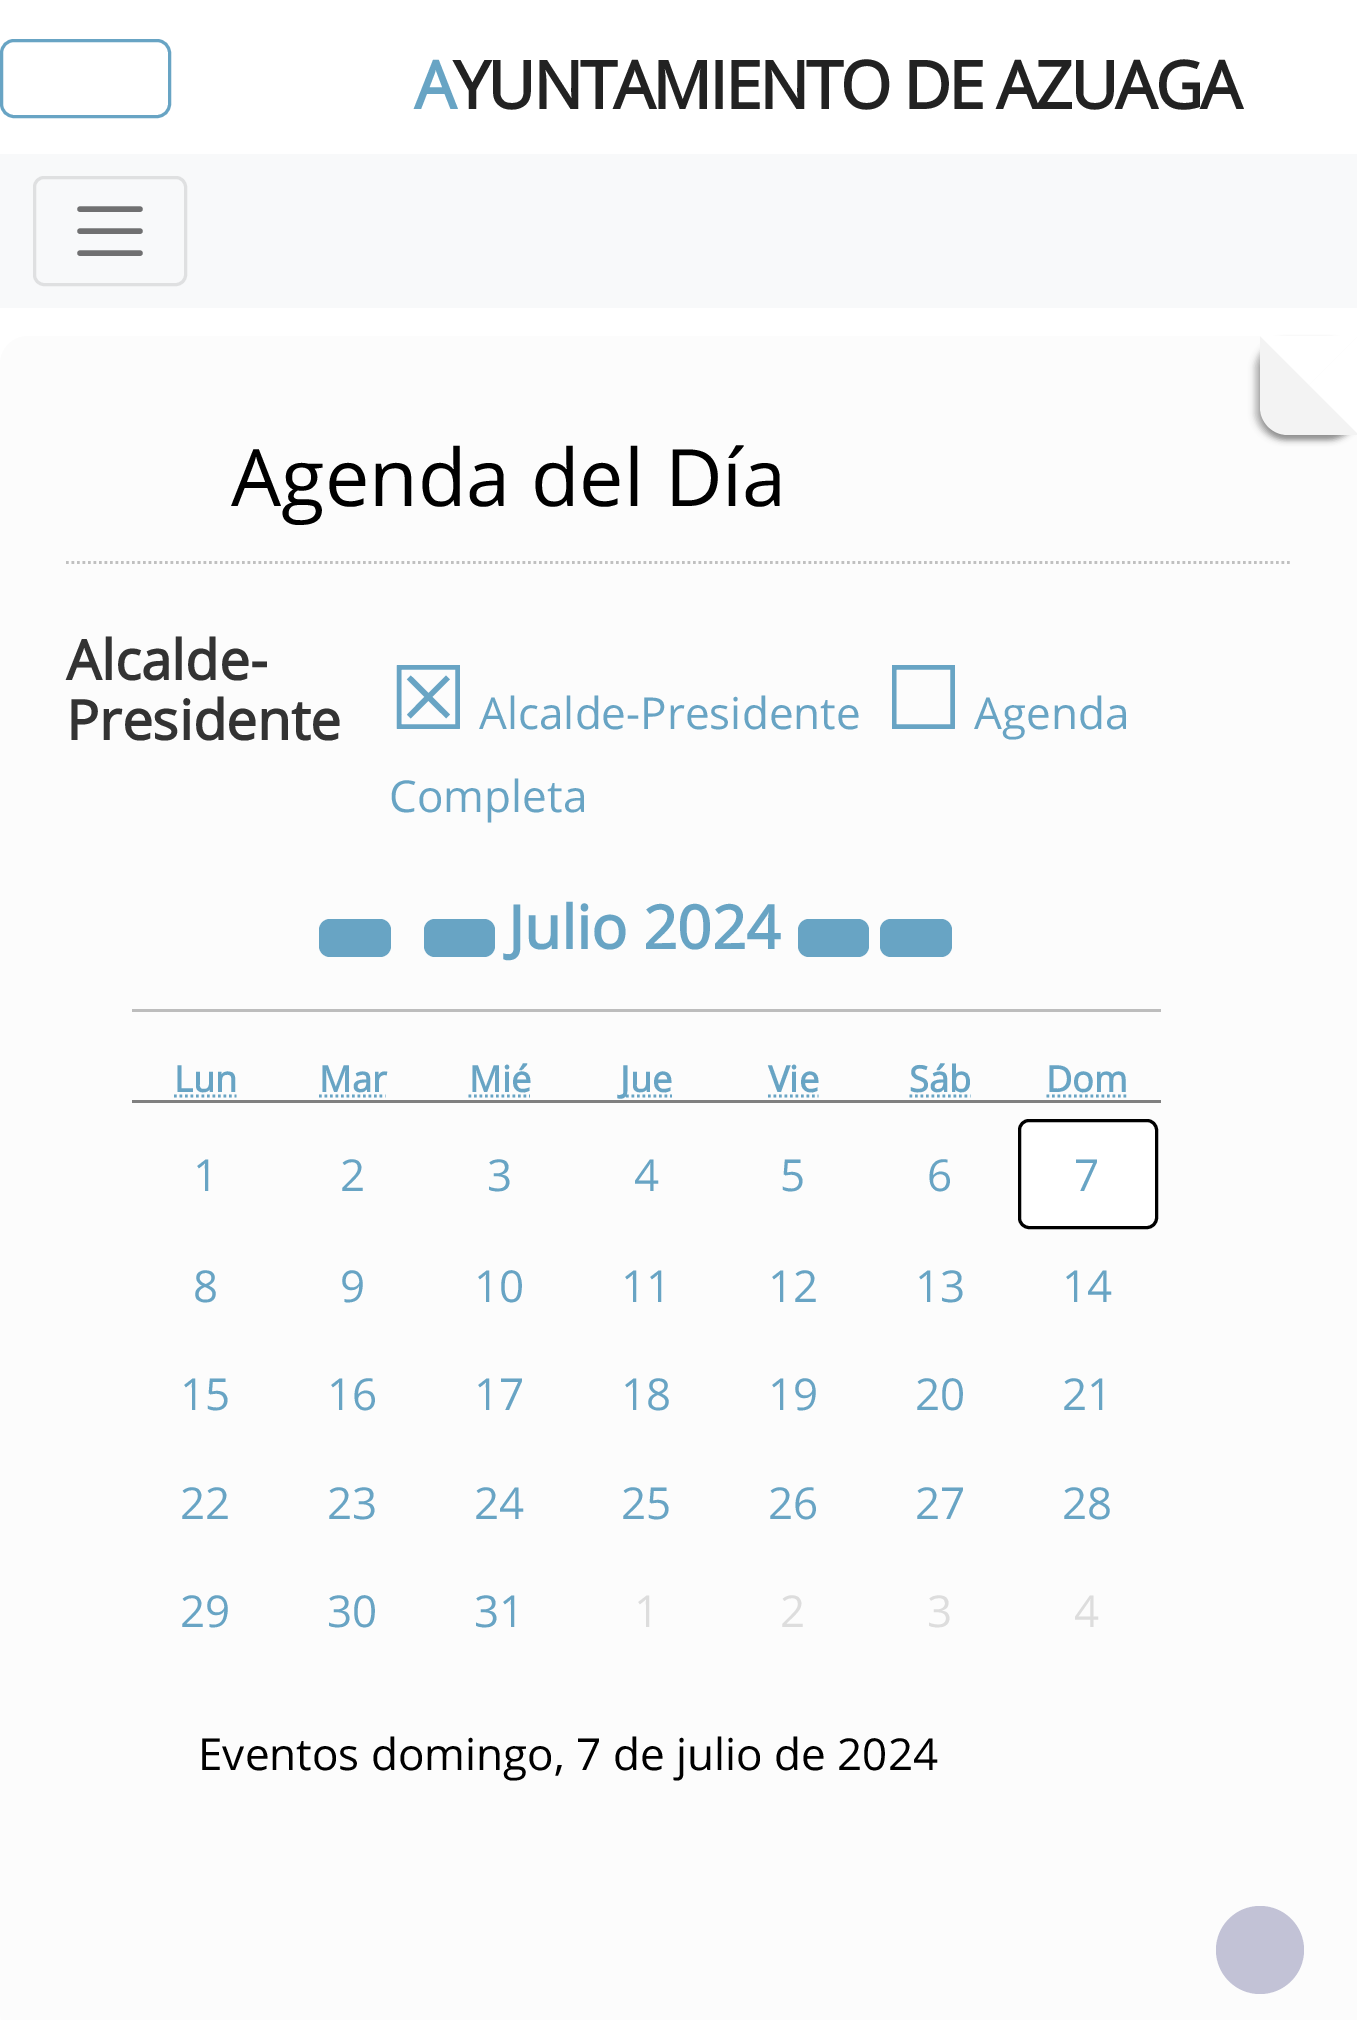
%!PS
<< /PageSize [1357 2020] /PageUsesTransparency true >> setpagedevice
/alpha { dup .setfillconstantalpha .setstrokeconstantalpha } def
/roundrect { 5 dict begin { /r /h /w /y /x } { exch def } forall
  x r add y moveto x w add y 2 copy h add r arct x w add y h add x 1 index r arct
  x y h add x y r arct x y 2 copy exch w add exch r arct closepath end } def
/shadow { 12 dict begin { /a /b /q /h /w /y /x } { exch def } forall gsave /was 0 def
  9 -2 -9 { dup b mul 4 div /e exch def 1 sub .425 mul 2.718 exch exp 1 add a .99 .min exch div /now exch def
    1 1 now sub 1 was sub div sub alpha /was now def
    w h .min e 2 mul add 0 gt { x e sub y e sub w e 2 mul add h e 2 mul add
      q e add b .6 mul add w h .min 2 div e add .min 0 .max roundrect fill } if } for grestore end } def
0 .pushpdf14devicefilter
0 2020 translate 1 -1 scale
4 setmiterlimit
1 setgray
0 0 1357 2020 rectfill
0.408 0.643 0.769 setrgbcolor
3 setlinewidth
1.5 40.5 168 76 12.5 roundrect stroke
/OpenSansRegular-Bold [66 0 0 -66 0 0] selectfont
414 109 moveto -2.75 0 (A) ashow
0.133 setgray
453 109 moveto -2.75 0 (YUNTAMIENTO DE AZUAGA) ashow
0.973 0.976 0.98 setrgbcolor
0 154 1357 154 rectfill
0.875 0.878 0.882 setrgbcolor
34.5 177.5 151 107 9.5 roundrect stroke
0.439 0.439 0.443 setrgbcolor
5.5 setlinewidth
1 setlinecap
newpath 80 209 moveto 140 209 lineto 80 231 moveto 140 231 lineto 80 253 moveto 140 253 lineto stroke
0.988 setgray
newpath 28 336 moveto 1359 336 lineto 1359 2013 lineto 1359 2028.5 1346.5 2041 1331 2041 curveto 28 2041 lineto 12.5 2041 0 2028.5 0 2013 curveto 0 364 lineto 0 348.5 12.5 336 28 336 curveto closepath fill
0 setgray
1254 341 99 99 28 3 0.2 shadow
1260 341 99 99 28 3 0.3 shadow
0.953 setgray
newpath 1260 336 moveto 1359 336 lineto 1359 435 lineto 1288 435 lineto 1272.5 435 1260 422.5 1260 407 curveto closepath fill
1 setgray
newpath 1260 336 moveto 1309 385 lineto 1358 336 lineto closepath fill
newpath 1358 434 moveto 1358 336 lineto 1309 385 lineto closepath fill
0.753 setgray
2.8 setlinewidth
0 setlinecap
[2.75 2.75] 0 setdash
newpath 66 562.5 moveto 1292.5 562.5 lineto stroke
/OpenSansRegular-Regular [79.25 0 0 -79.25 0 0] selectfont
0 setgray
231 506 moveto (Agenda del Día) show
/OpenSansRegular-Bold [55 0 0 -55 0 0] selectfont
0.2 setgray
66 680 moveto (Alcalde-) show
66 740 moveto (Presidente) show
/DejaVuSans-Regular [88 0 0 -88 0 0] selectfont
0.408 0.643 0.769 setrgbcolor
389 729 moveto (☒) show
/OpenSansRegular-Regular [44 0 0 -44 0 0] selectfont
479 729 moveto (Alcalde-Presidente) show
/DejaVuSans-Regular [88 0 0 -88 0 0] selectfont
884 729 moveto (☐) show
/OpenSansRegular-Regular [44 0 0 -44 0 0] selectfont
974 729 moveto (Agenda) show
389 812 moveto (Completa) show
319 919 72 38 11 roundrect fill
424 919 71 38 11 roundrect fill
/OpenSansRegular-Bold [60 0 0 -60 0 0] selectfont
508 949 moveto (Julio 2024) show
798 919 71 38 11 roundrect fill
880 919 72 38 11 roundrect fill
0.741 setgray
132 1009 1029 3 rectfill
0.502 setgray
132 1100 1029 3 rectfill
/OpenSansRegular-Bold [36 0 0 -36 0 0] selectfont
0.408 0.643 0.769 setrgbcolor
174 1092 moveto (Lun) show
newpath 174 1096 moveto 236.5 1096 lineto stroke
319 1092 moveto (Mar) show
newpath 319 1096 moveto 385.5 1096 lineto stroke
469 1092 moveto (Mié) show
newpath 468.5 1096 moveto 530 1096 lineto stroke
newpath 620.5 1096 moveto 672 1096 lineto stroke
620 1092 moveto (Jue) show
768 1092 moveto (Vie) show
newpath 768 1096 moveto 818.5 1096 lineto stroke
909 1092 moveto (Sáb) show
newpath 909.5 1096 moveto 970.5 1096 lineto stroke
1046 1092 moveto (Dom) show
newpath 1046.5 1096 moveto 1127.5 1096 lineto stroke
/OpenSansRegular-Regular [44 0 0 -44 0 0] selectfont
193 1191 moveto (1) show
340 1191 moveto (2) show
487 1191 moveto (3) show
634 1191 moveto (4) show
780 1191 moveto (5) show
927 1191 moveto (6) show
1 setgray
1019.5 1120.5 137 107 9.5 roundrect gsave fill grestore
0 setgray
3 setlinewidth
[] 0 setdash
stroke
0.408 0.643 0.769 setrgbcolor
1074 1191 moveto (7) show
193 1302 moveto (8) show
340 1302 moveto (9) show
474 1302 moveto (10) show
621 1302 moveto (11) show
768 1302 moveto (12) show
915 1302 moveto (13) show
1062 1302 moveto (14) show
180 1410 moveto (15) show
327 1410 moveto (16) show
474 1410 moveto (17) show
621 1410 moveto (18) show
768 1410 moveto (19) show
915 1410 moveto (20) show
1062 1410 moveto (21) show
180 1519 moveto (22) show
327 1519 moveto (23) show
474 1519 moveto (24) show
621 1519 moveto (25) show
768 1519 moveto (26) show
915 1519 moveto (27) show
1062 1519 moveto (28) show
180 1627 moveto (29) show
327 1627 moveto (30) show
474 1627 moveto (31) show
0.867 setgray
634 1627 moveto (1) show
780 1627 moveto (2) show
927 1627 moveto (3) show
1074 1627 moveto (4) show
0 setgray
198 1770 moveto (Eventos domingo, 7 de julio de 2024) show
0.761 0.761 0.839 setrgbcolor
newpath 1260 1950 44 0 360 arc closepath fill
.poppdf14devicefilter showpage
